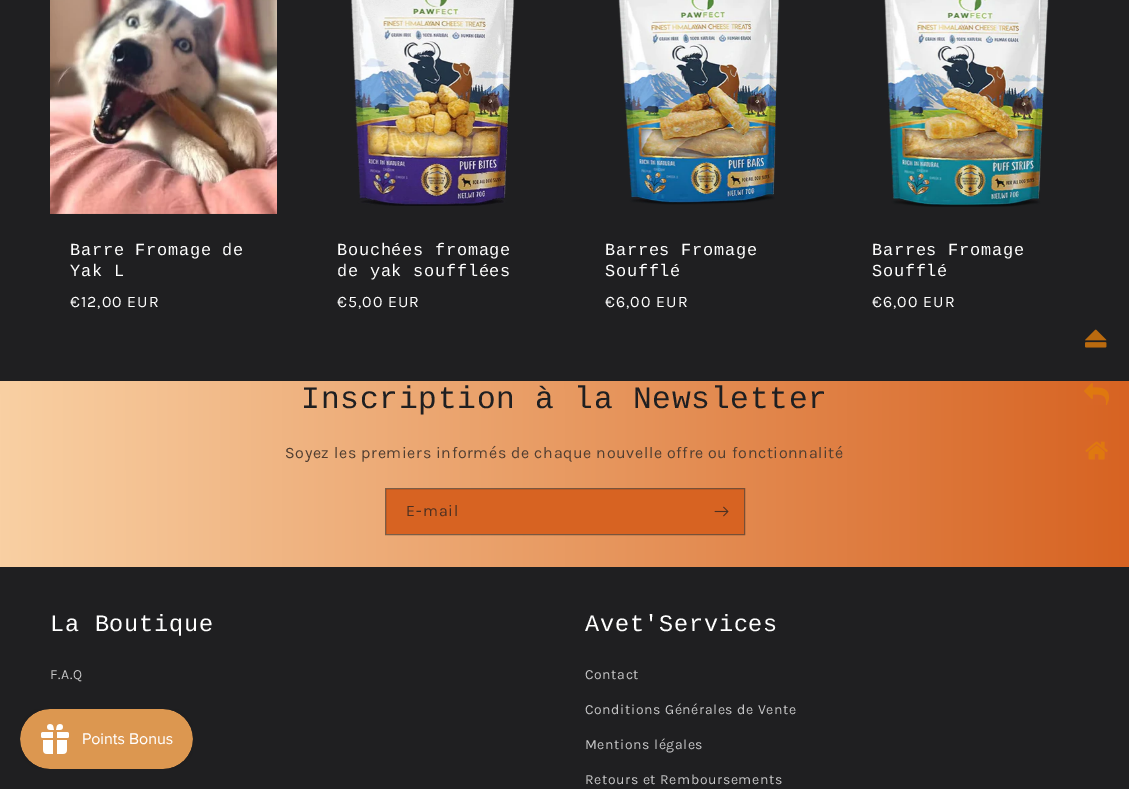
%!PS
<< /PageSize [1129 789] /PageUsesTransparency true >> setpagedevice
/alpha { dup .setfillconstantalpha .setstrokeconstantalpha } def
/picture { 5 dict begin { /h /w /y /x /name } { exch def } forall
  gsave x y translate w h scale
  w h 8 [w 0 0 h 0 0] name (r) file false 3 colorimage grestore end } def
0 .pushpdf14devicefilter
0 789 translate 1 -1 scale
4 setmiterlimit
0.122 0.122 0.129 setrgbcolor
0 0 1129 789 rectfill
(img1.rgb) 50 0 227 214 picture
/LiberationMono-Regular [16.9 0 0 -16.9 0 0] selectfont
1 setgray
70 255 moveto 0.75 0 (Barre Fromage de) ashow
70 276 moveto 0.75 0 (Yak L) ashow
/Karla-Regular [16 0 0 -16 0 0] selectfont
70 307 moveto 1 0 (€12,00 EUR) ashow
(img2.rgb) 351 0 164 206 picture
/LiberationMono-Regular [16.9 0 0 -16.9 0 0] selectfont
337 255 moveto 0.75 0 (Bouchées fromage) ashow
337 276 moveto 0.75 0 (de yak soufflées) ashow
/Karla-Regular [16 0 0 -16 0 0] selectfont
337 307 moveto 1 0 (€5,00 EUR) ashow
(img3.rgb) 618 0 162 205 picture
/LiberationMono-Regular [16.9 0 0 -16.9 0 0] selectfont
605 255 moveto 0.75 0 (Barres Fromage) ashow
605 276 moveto 0.75 0 (Soufflé) ashow
/Karla-Regular [16 0 0 -16 0 0] selectfont
605 307 moveto 1 0 (€6,00 EUR) ashow
(img4.rgb) 884 0 165 207 picture
/LiberationMono-Regular [16.9 0 0 -16.9 0 0] selectfont
872 255 moveto 0.75 0 (Barres Fromage) ashow
872 276 moveto 0.75 0 (Soufflé) ashow
/Karla-Regular [16 0 0 -16 0 0] selectfont
872 307 moveto 1 0 (€6,00 EUR) ashow
gsave newpath 0 381 moveto 1129 381 lineto 1129 567 lineto 0 567 lineto closepath clip newpath
<< /ShadingType 2 /ColorSpace /DeviceRGB /Coords [1129 394 0 395] /Extend [true true] /Function << /FunctionType 2 /Domain [0 1] /C0 [0.843 0.388 0.133] /C1 [0.976 0.816 0.639] /N 1 >> >> shfill grestore
/LiberationMono-Regular [31.25 0 0 -31.25 0 0] selectfont
0.122 0.122 0.129 setrgbcolor
301 408 moveto 0.75 0 (Inscription à la Newsletter) ashow
/Karla-Regular [16 0 0 -16 0 0] selectfont
0.318 0.243 0.192 setrgbcolor
285 458 moveto 0.6 0 (Soyez les premiers informés de chaque nouvelle offre ou fonctionnalité) ashow
0.843 0.388 0.133 setrgbcolor
386 489 358 45 rectfill
0.55 alpha
0.122 0.122 0.129 setrgbcolor
385.5 488.5 359 46 rectstroke
1 alpha
0.302 0.188 0.129 setrgbcolor
406 516 moveto 1 0 (E-mail) ashow
(img5.rgb) 714 506 15 11 picture
(img6.rgb) 1085 329 22 19 picture
(img7.rgb) 1084 383 25 22 picture
(img8.rgb) 1085 441 23 19 picture
/LiberationMono-Regular [23.5 0 0 -23.5 0 0] selectfont
1 setgray
50 631 moveto 0.75 0 (La Boutique) ashow
/Karla-Regular [14 0 0 -14 0 0] selectfont
0.78 0.78 0.784 setrgbcolor
50 679 moveto 0.6 0 (F.A.Q) ashow
/LiberationMono-Regular [23.5 0 0 -23.5 0 0] selectfont
1 setgray
585 631 moveto 0.75 0 (Avet'Services) ashow
/Karla-Regular [14 0 0 -14 0 0] selectfont
0.78 0.78 0.784 setrgbcolor
585 679 moveto 0.6 0 (Contact) ashow
585 714 moveto 0.6 0 (Conditions Générales de Vente) ashow
585 749 moveto 0.6 0 (Mentions légales) ashow
585 784 moveto 0.6 0 (Retours et Remboursements) ashow
(img9.rgb) 20 709 173 60 picture
.poppdf14devicefilter showpage
